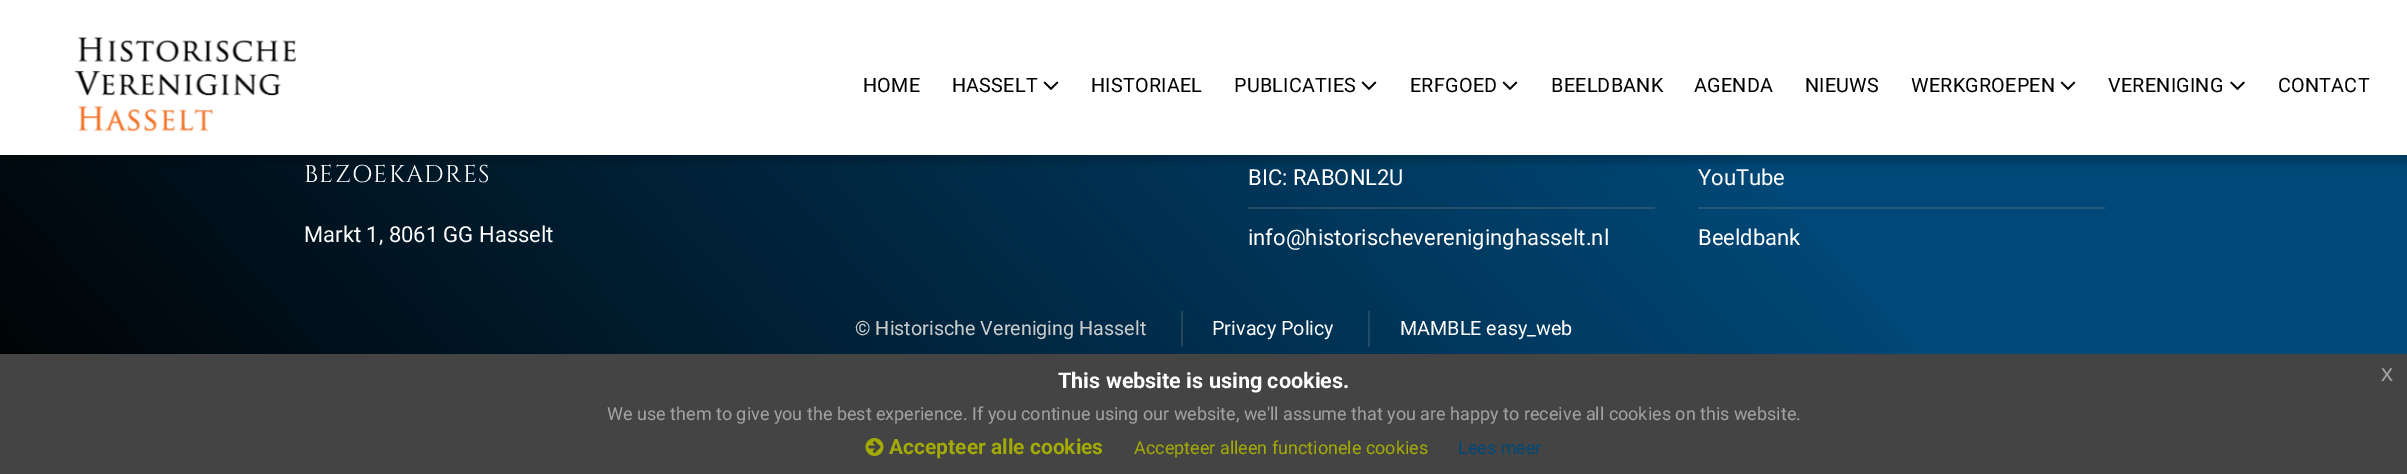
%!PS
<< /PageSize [2407 474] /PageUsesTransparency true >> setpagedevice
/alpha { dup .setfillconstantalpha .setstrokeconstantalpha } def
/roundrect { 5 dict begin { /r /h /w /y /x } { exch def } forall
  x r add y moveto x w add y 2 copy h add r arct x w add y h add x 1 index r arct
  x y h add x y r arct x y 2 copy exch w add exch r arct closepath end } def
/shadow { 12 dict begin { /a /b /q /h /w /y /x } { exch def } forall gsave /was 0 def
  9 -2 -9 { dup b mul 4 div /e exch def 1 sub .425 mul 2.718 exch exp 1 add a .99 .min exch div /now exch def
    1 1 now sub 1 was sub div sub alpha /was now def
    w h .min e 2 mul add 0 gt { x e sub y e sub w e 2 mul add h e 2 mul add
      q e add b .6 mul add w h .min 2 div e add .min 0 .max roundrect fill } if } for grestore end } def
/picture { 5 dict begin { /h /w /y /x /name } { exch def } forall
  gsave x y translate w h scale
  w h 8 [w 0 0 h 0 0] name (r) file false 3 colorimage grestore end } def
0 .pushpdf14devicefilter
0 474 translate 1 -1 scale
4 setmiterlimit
1 setgray
0 0 2407 474 rectfill
gsave newpath 0 155 moveto 2407 155 lineto 2407 354 lineto 0 354 lineto closepath clip newpath
<< /ShadingType 2 /ColorSpace /DeviceRGB /Coords [389 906 2019 -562] /Extend [true true] /Function << /FunctionType 3 /Domain [0 1] /Functions [<< /FunctionType 2 /Domain [0 1] /C0 [0 0 0] /C1 [0 0.282 0.467] /N 1 >> << /FunctionType 2 /Domain [0 1] /C0 [0 0.282 0.467] /C1 [0 0.282 0.467] /N 1 >>] /Bounds [0.69] /Encode [0 1 0 1] >> >> shfill grestore
0 setgray
0 8 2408 154 0 4 0.2 shadow
1 setgray
0 1 2407 154 rectfill
(img1.rgb) 74 36 223 96 picture
/Roboto-Regular [19.75 0 0 -19.75 0 0] selectfont
0 setgray
863 92 moveto 0.25 0 (HOME) ashow
952 92 moveto 0.25 0 (HASSELT) ashow
(img2.rgb) 1043 81 16 9 picture
1091 92 moveto 0.25 0 (HISTORIAEL) ashow
1234 92 moveto 0.25 0 (PUBLICATIES) ashow
(img2.rgb) 1361 81 16 9 picture
1410 92 moveto 0.25 0 (ERFGOED) ashow
(img2.rgb) 1502 81 16 9 picture
1551 92 moveto 0.25 0 (BEELDBANK) ashow
1694 92 moveto 0.25 0 (AGENDA) ashow
1805 92 moveto 0.25 0 (NIEUWS) ashow
1911 92 moveto 0.25 0 (WERKGROEPEN) ashow
(img2.rgb) 2060 81 16 9 picture
2108 92 moveto 0.25 0 (VERENIGING) ashow
(img3.rgb) 2230 81 15 9 picture
2278 92 moveto 0.25 0 (CONTACT) ashow
gsave newpath 1698 207 moveto 2105 207 lineto 2105 209 lineto 1698 209 lineto closepath clip newpath
<< /ShadingType 2 /ColorSpace /DeviceRGB /Coords [389 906 2019 -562] /Extend [true true] /Function << /FunctionType 3 /Domain [0 1] /Functions [<< /FunctionType 2 /Domain [0 1] /C0 [0.141 0.141 0.141] /C1 [0.141 0.353 0.49] /N 1 >> << /FunctionType 2 /Domain [0 1] /C0 [0.141 0.353 0.49] /C1 [0.141 0.353 0.49] /N 1 >>] /Bounds [0.69] /Encode [0 1 0 1] >> >> shfill grestore
gsave newpath 1248 207 moveto 1655 207 lineto 1655 209 lineto 1248 209 lineto closepath clip newpath
<< /ShadingType 2 /ColorSpace /DeviceRGB /Coords [389 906 2019 -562] /Extend [true true] /Function << /FunctionType 3 /Domain [0 1] /Functions [<< /FunctionType 2 /Domain [0 1] /C0 [0.141 0.141 0.141] /C1 [0.141 0.353 0.49] /N 1 >> << /FunctionType 2 /Domain [0 1] /C0 [0.141 0.353 0.49] /C1 [0.141 0.353 0.49] /N 1 >>] /Bounds [0.69] /Encode [0 1 0 1] >> >> shfill grestore
/Cinzel-Regular [24.25 0 0 -24.25 0 0] selectfont
1 setgray
304 182 moveto 1.25 0 (BEZOEKADRES) ashow
/Roboto-Regular [22 0 0 -22 0 0] selectfont
304 242 moveto (Markt 1, 8061 GG Hasselt) show
1248 185 moveto (BIC: RABONL2U) show
1248 245 moveto (info@historischevereniginghasselt.nl) show
1698 185 moveto (YouTube) show
1698 245 moveto (Beeldbank) show
/Roboto-Regular [19.75 0 0 -19.75 0 0] selectfont
0.8 setgray
855 335 moveto (© Historische Vereniging Hasselt) show
0.141 0.278 0.369 setrgbcolor
1181 311 2 36 rectfill
1 setgray
1212 335 moveto (Privacy Policy) show
0.141 0.298 0.4 setrgbcolor
1368 311 2 36 rectfill
1 setgray
1400 335 moveto (MAMBLE easy_web) show
0.267 setgray
0 354 2407 120 rectfill
/Roboto-Bold [21.6 0 0 -21.6 0 0] selectfont
1 setgray
1058 388 moveto (This website is using cookies.) show
/LiberationSans-Regular [24 0 0 -24 0 0] selectfont
0.635 setgray
2381 381 moveto (x) show
/Roboto-Regular [18 0 0 -18 0 0] selectfont
607 420 moveto (We use them to give you the best experience. If you continue using our website, we'll assume that you are happy to receive all cookies on this website.) show
(img4.rgb) 865 438 19 18 picture
/Roboto-Bold [21 0 0 -21 0 0] selectfont
0.643 0.667 0.016 setrgbcolor
889 454 moveto (Accepteer alle cookies) show
/Roboto-Regular [18 0 0 -18 0 0] selectfont
1134 454 moveto (Accepteer alleen functionele cookies) show
0 0.282 0.467 setrgbcolor
1458 454 moveto (Lees meer) show
.poppdf14devicefilter showpage
